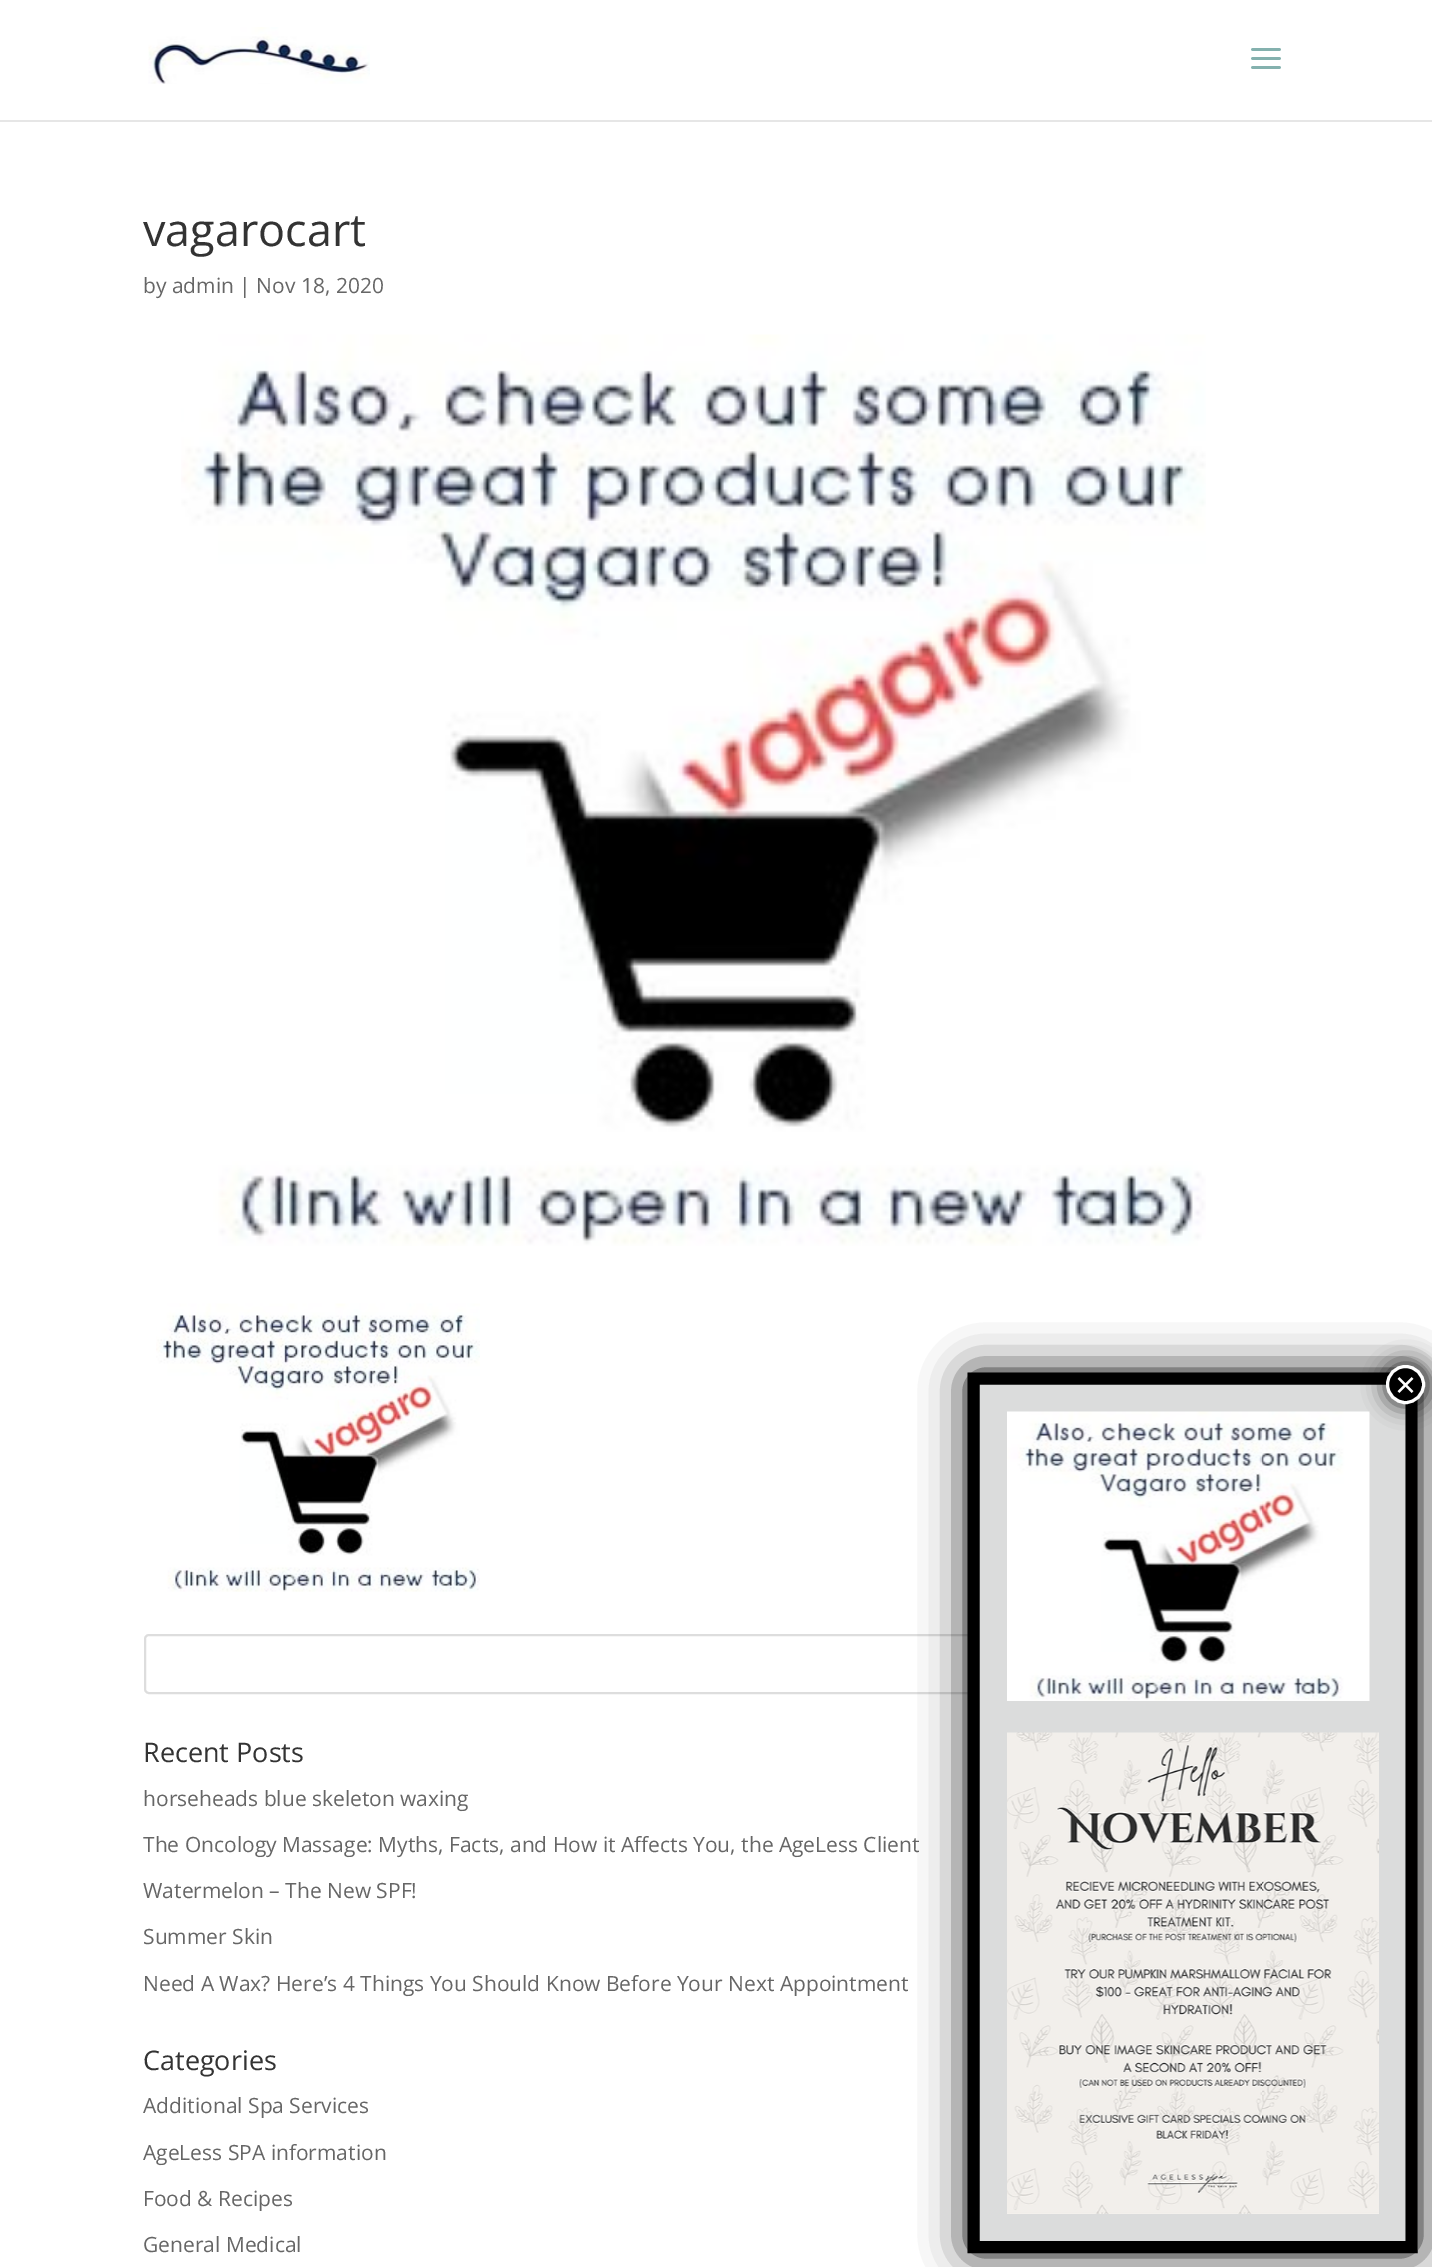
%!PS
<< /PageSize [1432 2267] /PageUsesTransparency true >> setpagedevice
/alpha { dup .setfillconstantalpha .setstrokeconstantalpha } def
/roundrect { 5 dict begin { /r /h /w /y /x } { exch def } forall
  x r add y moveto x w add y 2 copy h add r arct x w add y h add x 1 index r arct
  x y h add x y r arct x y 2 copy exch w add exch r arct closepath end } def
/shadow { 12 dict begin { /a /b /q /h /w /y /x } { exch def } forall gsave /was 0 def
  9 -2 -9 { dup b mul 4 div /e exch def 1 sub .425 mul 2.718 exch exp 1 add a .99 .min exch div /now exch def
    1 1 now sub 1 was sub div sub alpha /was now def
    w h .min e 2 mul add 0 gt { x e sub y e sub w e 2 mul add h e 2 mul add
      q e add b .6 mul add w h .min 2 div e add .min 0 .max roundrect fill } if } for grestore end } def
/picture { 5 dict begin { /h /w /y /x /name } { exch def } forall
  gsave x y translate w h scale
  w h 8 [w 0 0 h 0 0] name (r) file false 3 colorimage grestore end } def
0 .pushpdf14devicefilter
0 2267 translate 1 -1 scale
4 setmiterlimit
1 setgray
0 0 1432 2267 rectfill
0.902 setgray
newpath 0 120 moveto 0 122 lineto 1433 122 lineto 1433 2 lineto 1432 2 lineto 1432 120 lineto closepath fill
(img1.rgb) 148 27 222 57 picture
(img2.rgb) 1251 48 30 21 picture
/OpenSans-Regular [45 0 0 -45 0 0] selectfont
0.2 setgray
143 246 moveto (vagarocart) show
/OpenSans-Regular [21 0 0 -21 0 0] selectfont
0.4 setgray
143 293 moveto (by admin | Nov 18, 2020) show
(img3.rgb) 181 334 1025 912 picture
(img4.rgb) 156 1303 324 289 picture
0.867 setgray
2 setlinewidth
145 1635 1144 58 4 roundrect stroke
/OpenSans-Regular [27 0 0 -27 0 0] selectfont
0.2 setgray
143 1762 moveto (Recent Posts) show
/OpenSans-Regular [21 0 0 -21 0 0] selectfont
0.4 setgray
143 1806 moveto (horseheads blue skeleton waxing) show
143 1852 moveto (The Oncology Massage: Myths, Facts, and How it Affects You, the AgeLess Client) show
143 1898 moveto (Watermelon – The New SPF!) show
143 1944 moveto (Summer Skin) show
143 1991 moveto (Need A Wax? Here’s 4 Things You Should Know Before Your Next Appointment) show
/OpenSans-Regular [27 0 0 -27 0 0] selectfont
0.2 setgray
143 2070 moveto (Categories) show
/OpenSans-Regular [21 0 0 -21 0 0] selectfont
0.4 setgray
143 2113 moveto (Additional Spa Services) show
143 2160 moveto (AgeLess SPA information) show
143 2206 moveto (Food & Recipes) show
143 2252 moveto (General Medical) show
0.008 setgray
968 1373 450 880 5 22.5 1 shadow
0.859 0.863 0.863 setrgbcolor
968 1373 450 880 5 roundrect fill
0 setgray
12 setlinewidth
newpath 973.5 1378.5 moveto 1411.5 1378.5 lineto 1411.5 2247 lineto 973.5 2247 lineto closepath stroke
(img5.rgb) 1007 1411 363 290 picture
0.008 setgray
1385 1364 42 42 21 11 0.75 shadow
0 setgray
newpath 1405.5 1384.5 18 0 360 arc closepath gsave fill grestore
1 setgray
3 setlinewidth
stroke
/LiberationSans-Regular [36 0 0 -36 0 0] selectfont
1395 1397 moveto (×) show
(img6.rgb) 1007 1732 372 482 picture
.poppdf14devicefilter showpage
